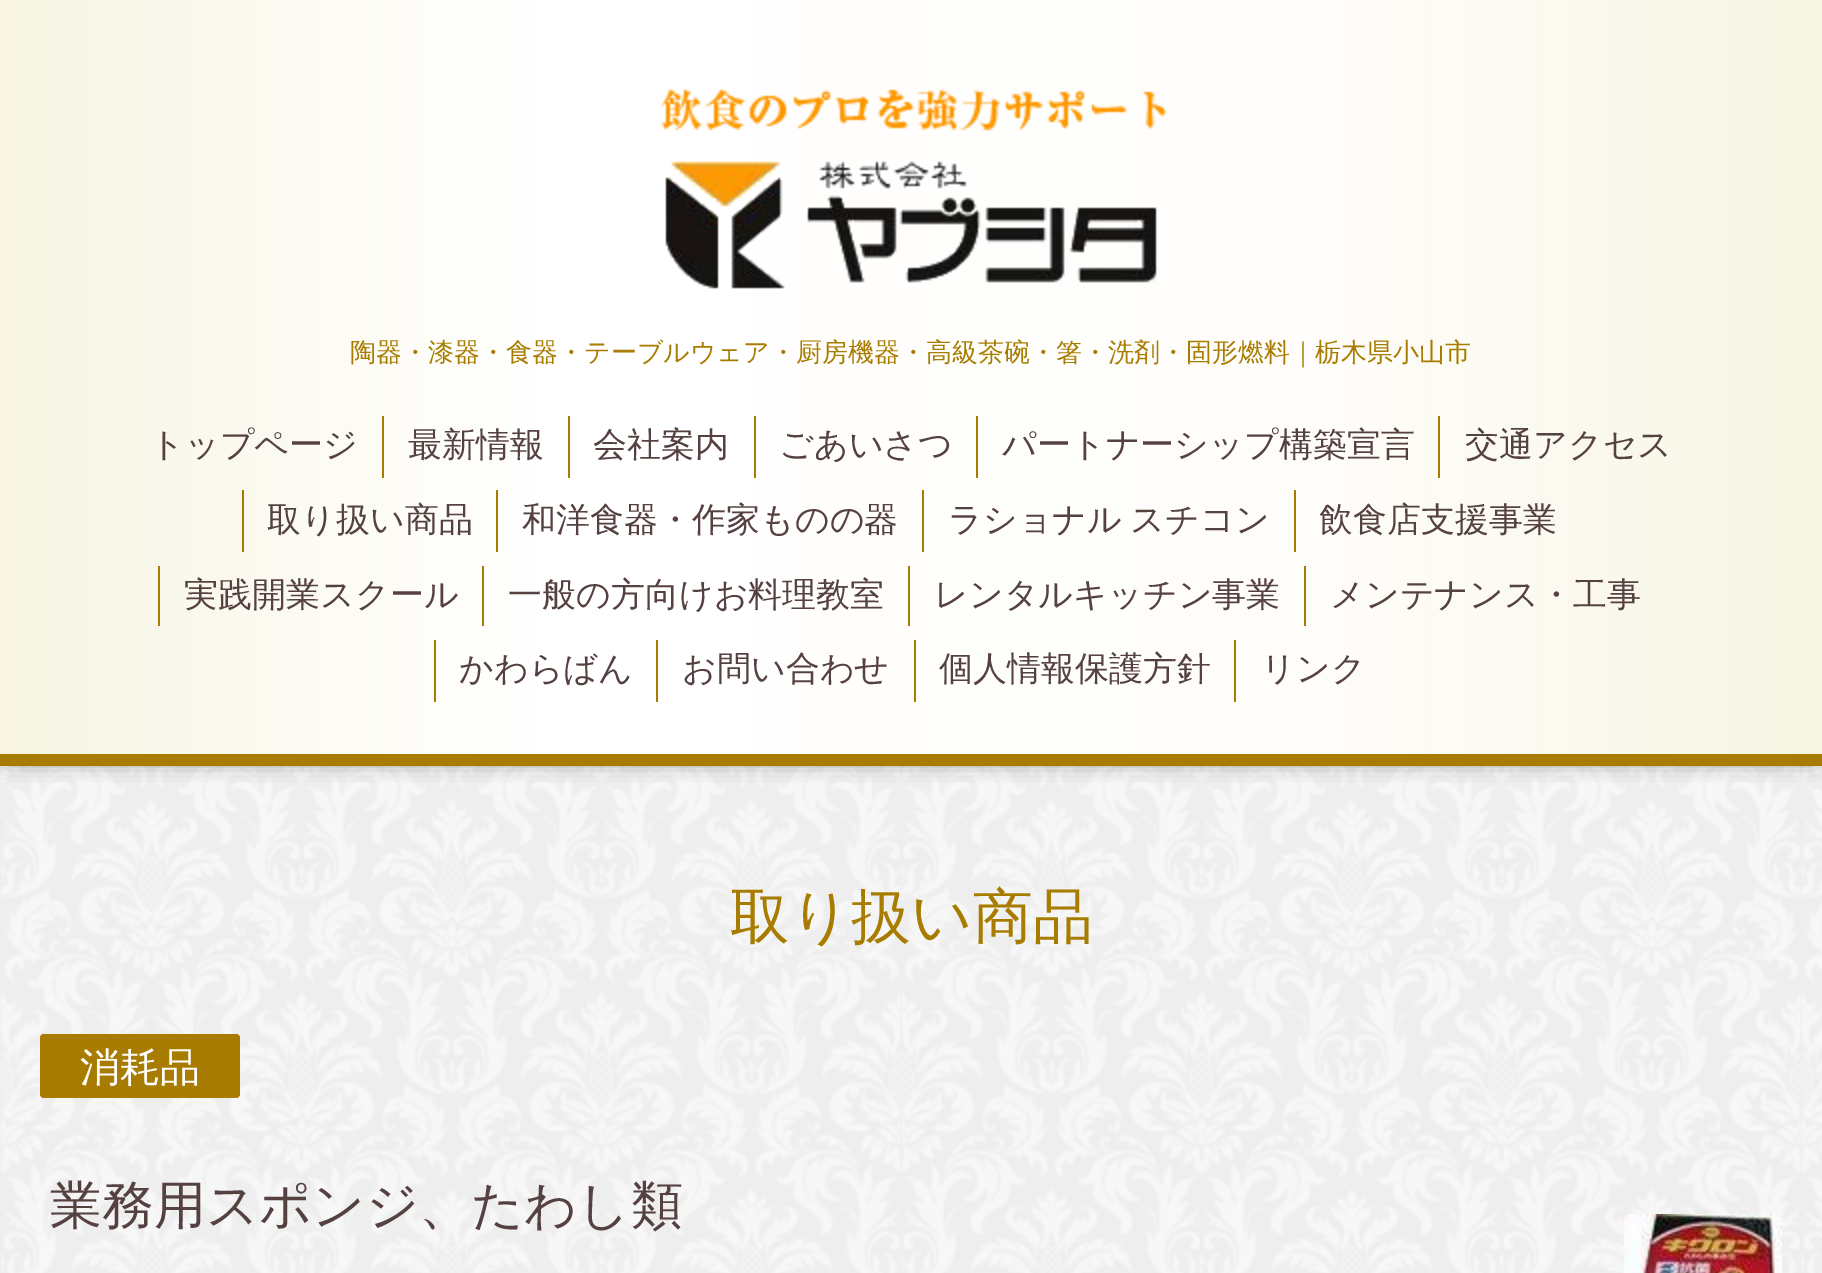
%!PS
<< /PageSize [1822 1273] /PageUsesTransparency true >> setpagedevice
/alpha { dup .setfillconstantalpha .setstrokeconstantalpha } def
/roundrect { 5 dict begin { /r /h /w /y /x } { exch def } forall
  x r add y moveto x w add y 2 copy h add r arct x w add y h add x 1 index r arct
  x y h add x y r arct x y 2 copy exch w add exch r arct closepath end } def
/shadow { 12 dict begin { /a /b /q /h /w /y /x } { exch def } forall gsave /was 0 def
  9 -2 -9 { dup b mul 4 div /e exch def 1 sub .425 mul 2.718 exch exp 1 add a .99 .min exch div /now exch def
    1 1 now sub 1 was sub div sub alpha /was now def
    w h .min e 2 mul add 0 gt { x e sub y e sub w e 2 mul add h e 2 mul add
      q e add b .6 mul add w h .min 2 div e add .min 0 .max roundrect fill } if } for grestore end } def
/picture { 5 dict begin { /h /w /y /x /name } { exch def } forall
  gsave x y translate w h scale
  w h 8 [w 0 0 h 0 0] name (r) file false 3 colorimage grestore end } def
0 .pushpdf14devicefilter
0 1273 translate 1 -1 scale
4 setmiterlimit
0.933 setgray
0 0 1822 1273 rectfill
(img1.rgb) 0 766 1822 507 picture
0 setgray
8 10 1806 750 0 10 0.6 shadow
(img2.rgb) 0 0 1822 754 picture
0.659 0.486 0 setrgbcolor
0 754 1822 12 rectfill
(img3.rgb) 660 88 507 201 picture
/WenQuanYiZenHei-Medium [26 0 0 -26 0 0] selectfont
350 361 moveto (陶器・漆器・食器・テーブルウェア・厨房機器・高級茶碗・箸・洗剤・固形燃料｜栃木県小山市) show
/WenQuanYiZenHei-Medium [34 0 0 -34 0 0] selectfont
0.337 0.255 0.255 setrgbcolor
150 456 moveto (トップページ) show
0.659 0.486 0 setrgbcolor
382 416 2 62 rectfill
0.337 0.255 0.255 setrgbcolor
408 456 moveto (最新情報) show
0.659 0.486 0 setrgbcolor
568 416 2 62 rectfill
0.337 0.255 0.255 setrgbcolor
593 456 moveto (会社案内) show
0.659 0.486 0 setrgbcolor
754 416 2 62 rectfill
0.337 0.255 0.255 setrgbcolor
779 456 moveto (ごあいさつ) show
0.659 0.486 0 setrgbcolor
976 416 2 62 rectfill
0.337 0.255 0.255 setrgbcolor
1002 456 moveto (パートナーシップ構築宣言) show
0.659 0.486 0 setrgbcolor
1438 416 2 62 rectfill
0.337 0.255 0.255 setrgbcolor
1465 456 moveto (交通アクセス) show
0.659 0.486 0 setrgbcolor
242 490 2 62 rectfill
0.337 0.255 0.255 setrgbcolor
267 531 moveto (取り扱い商品) show
0.659 0.486 0 setrgbcolor
496 490 2 62 rectfill
0.337 0.255 0.255 setrgbcolor
522 531 moveto (和洋食器・作家ものの器) show
0.659 0.486 0 setrgbcolor
922 490 2 62 rectfill
0.337 0.255 0.255 setrgbcolor
948 531 moveto -2 0 32 (ラショナル スチコン) widthshow
0.659 0.486 0 setrgbcolor
1294 490 2 62 rectfill
0.337 0.255 0.255 setrgbcolor
1319 531 moveto (飲食店支援事業) show
0.659 0.486 0 setrgbcolor
158 566 2 60 rectfill
0.337 0.255 0.255 setrgbcolor
184 606 moveto (実践開業スクール) show
0.659 0.486 0 setrgbcolor
482 566 2 60 rectfill
0.337 0.255 0.255 setrgbcolor
508 606 moveto (一般の方向けお料理教室) show
0.659 0.486 0 setrgbcolor
908 566 2 60 rectfill
0.337 0.255 0.255 setrgbcolor
934 606 moveto (レンタルキッチン事業) show
0.659 0.486 0 setrgbcolor
1304 566 2 60 rectfill
0.337 0.255 0.255 setrgbcolor
1330 606 moveto (メンテナンス・工事) show
0.659 0.486 0 setrgbcolor
434 640 2 62 rectfill
0.337 0.255 0.255 setrgbcolor
459 680 moveto (かわらばん) show
0.659 0.486 0 setrgbcolor
656 640 2 62 rectfill
0.337 0.255 0.255 setrgbcolor
682 680 moveto (お問い合わせ) show
0.659 0.486 0 setrgbcolor
914 640 2 62 rectfill
0.337 0.255 0.255 setrgbcolor
939 680 moveto (個人情報保護方針) show
0.659 0.486 0 setrgbcolor
1234 640 2 62 rectfill
0.337 0.255 0.255 setrgbcolor
1261 680 moveto (リンク) show
/WenQuanYiZenHei-Medium [60 0 0 -60 0 0] selectfont
0.659 0.486 0 setrgbcolor
730 937 moveto (取り扱い商品) show
40 1034 200 64 4 roundrect fill
/WenQuanYiZenHei-Medium [40 0 0 -40 0 0] selectfont
1 setgray
80 1081 moveto (消耗品) show
/WenQuanYiZenHei-Medium [52 0 0 -52 0 0] selectfont
0.337 0.255 0.255 setrgbcolor
50 1223 moveto (業務用スポンジ、たわし類) show
(img4.rgb) 1624 1214 158 59 picture
.poppdf14devicefilter showpage
